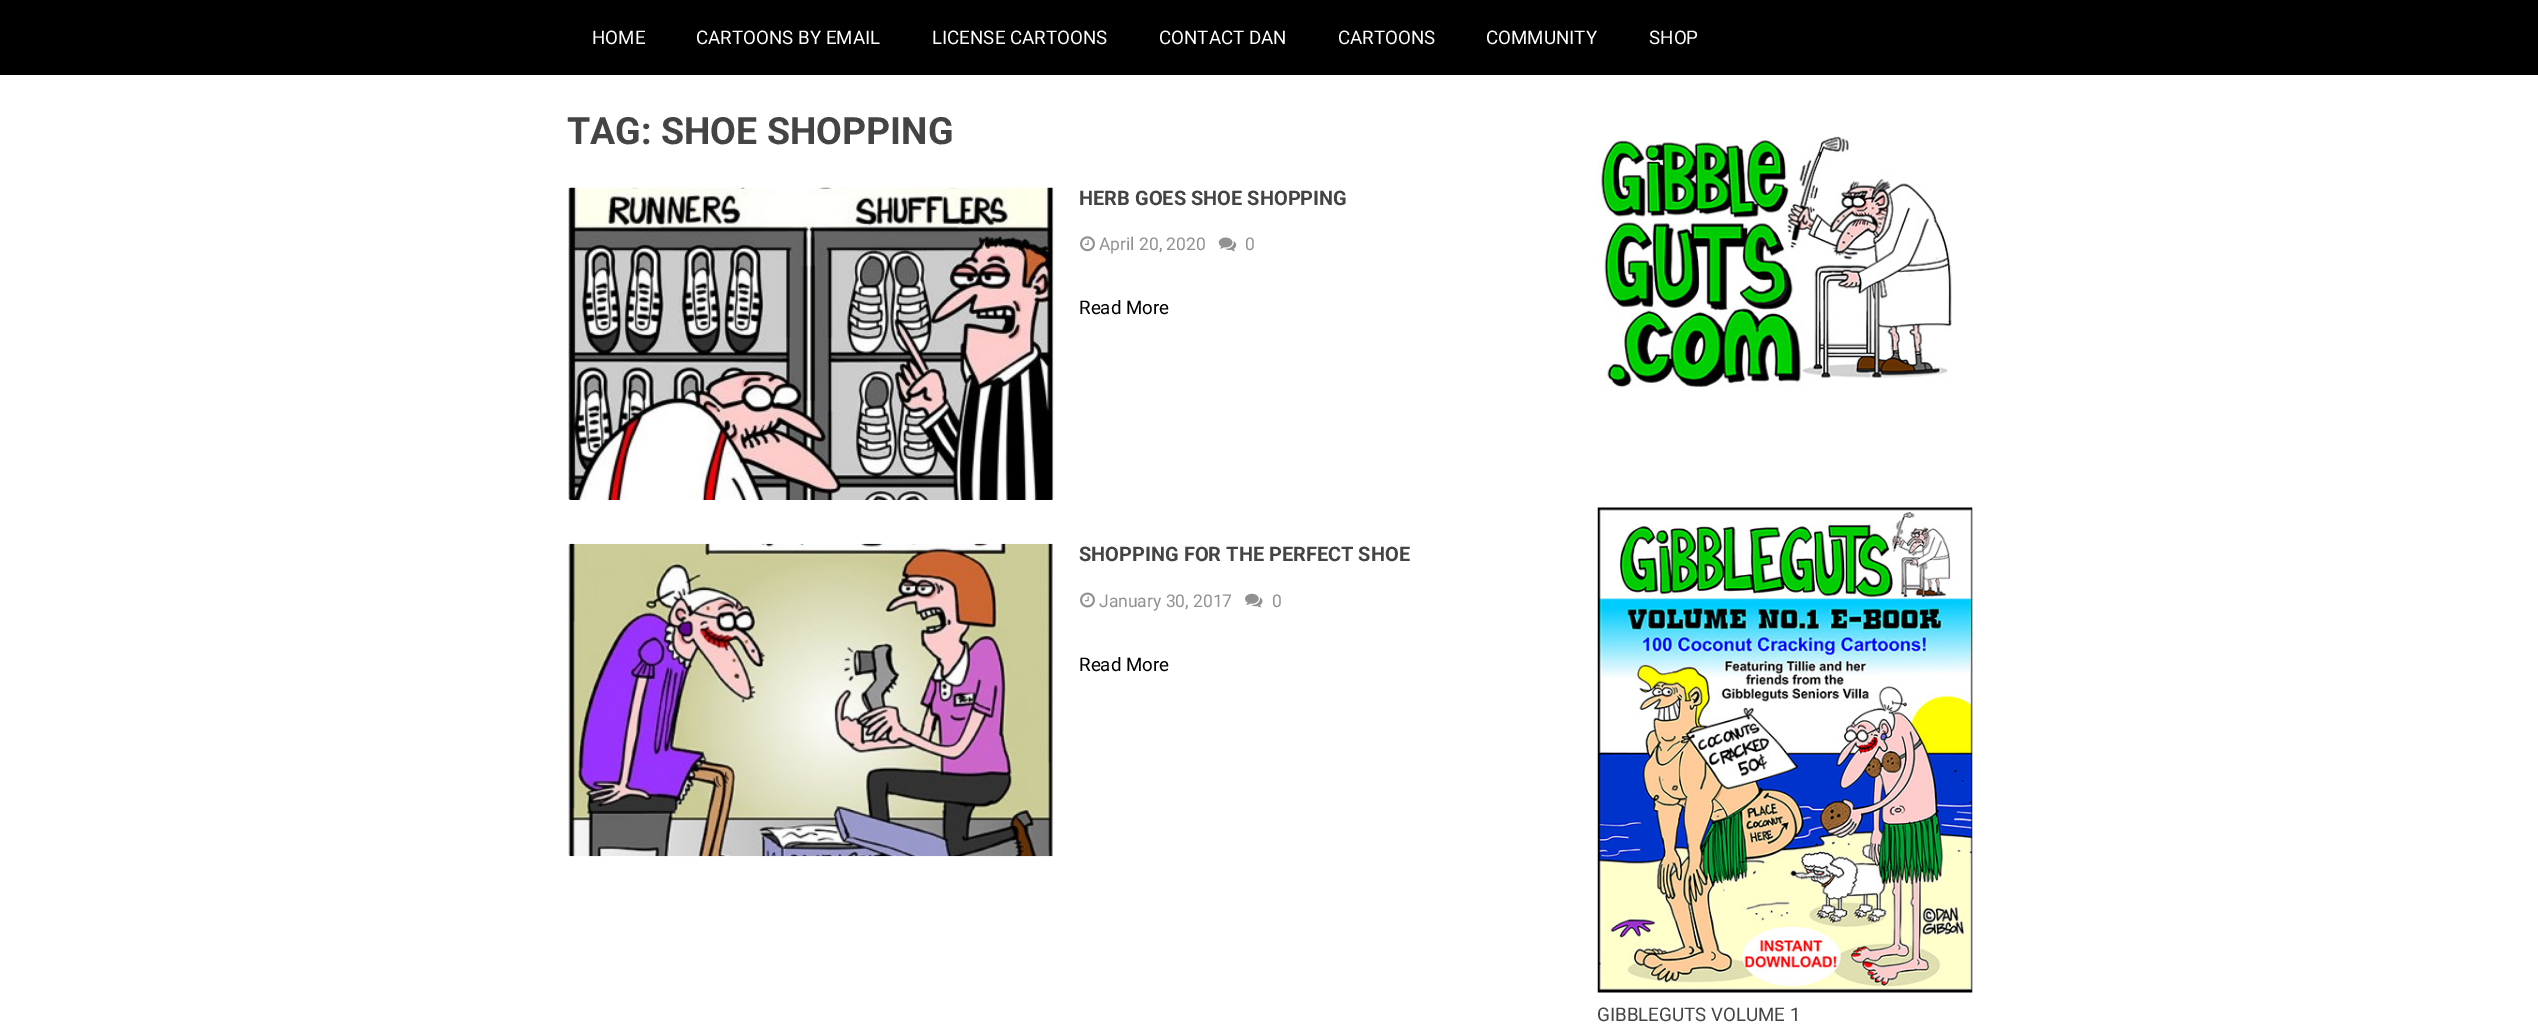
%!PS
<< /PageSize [2538 1027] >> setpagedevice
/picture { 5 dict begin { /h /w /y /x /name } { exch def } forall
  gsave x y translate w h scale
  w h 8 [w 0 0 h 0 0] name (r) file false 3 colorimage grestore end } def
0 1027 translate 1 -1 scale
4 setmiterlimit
1 setgray
0 0 2538 1027 rectfill
0 setgray
0 0 2538 75 rectfill
/Roboto-Regular [18.75 0 0 -18.75 0 0] selectfont
1 setgray
592 44 moveto (HOME) show
696 44 moveto (CARTOONS BY EMAIL) show
932 44 moveto (LICENSE CARTOONS) show
1159 44 moveto (CONTACT DAN) show
1338 44 moveto (CARTOONS) show
1486 44 moveto (COMMUNITY) show
1649 44 moveto (SHOP) show
/Roboto-Bold [37.5 0 0 -37.5 0 0] selectfont
0.267 setgray
567 144 moveto (TAG: SHOE SHOPPING) show
(img1.rgb) 568 187 487 313 picture
/Roboto-Bold [20 0 0 -20 0 0] selectfont
1079 205 moveto (HERB GOES SHOE SHOPPING) show
(img2.rgb) 1080 236 15 16 picture
/Roboto-Regular [17.5 0 0 -17.5 0 0] selectfont
0.569 setgray
1099 250 moveto (April 20, 2020) show
(img3.rgb) 1218 237 19 15 picture
1245 250 moveto (0) show
/Roboto-Regular [18.75 0 0 -18.75 0 0] selectfont
0 setgray
1079 314 moveto (Read More) show
(img4.rgb) 568 543 487 314 picture
/Roboto-Bold [20 0 0 -20 0 0] selectfont
0.267 setgray
1079 561 moveto (SHOPPING FOR THE PERFECT SHOE) show
(img5.rgb) 1080 592 15 16 picture
/Roboto-Regular [17.5 0 0 -17.5 0 0] selectfont
0.569 setgray
1099 607 moveto (January 30, 2017) show
(img6.rgb) 1245 593 18 15 picture
1272 607 moveto (0) show
/Roboto-Regular [18.75 0 0 -18.75 0 0] selectfont
0 setgray
1079 671 moveto (Read More) show
(img7.rgb) 1598 136 354 252 picture
(img8.rgb) 1597 507 376 486 picture
0.267 setgray
1597 1021 moveto (GIBBLEGUTS VOLUME 1) show
showpage
